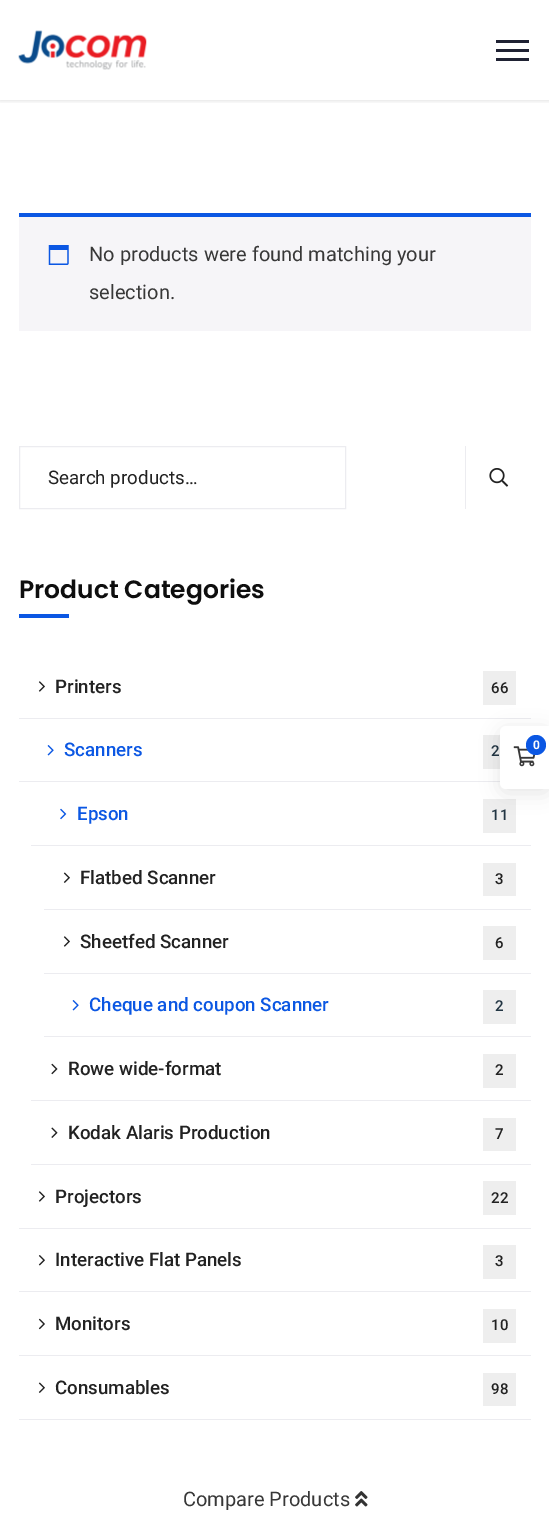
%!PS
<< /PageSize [549 1514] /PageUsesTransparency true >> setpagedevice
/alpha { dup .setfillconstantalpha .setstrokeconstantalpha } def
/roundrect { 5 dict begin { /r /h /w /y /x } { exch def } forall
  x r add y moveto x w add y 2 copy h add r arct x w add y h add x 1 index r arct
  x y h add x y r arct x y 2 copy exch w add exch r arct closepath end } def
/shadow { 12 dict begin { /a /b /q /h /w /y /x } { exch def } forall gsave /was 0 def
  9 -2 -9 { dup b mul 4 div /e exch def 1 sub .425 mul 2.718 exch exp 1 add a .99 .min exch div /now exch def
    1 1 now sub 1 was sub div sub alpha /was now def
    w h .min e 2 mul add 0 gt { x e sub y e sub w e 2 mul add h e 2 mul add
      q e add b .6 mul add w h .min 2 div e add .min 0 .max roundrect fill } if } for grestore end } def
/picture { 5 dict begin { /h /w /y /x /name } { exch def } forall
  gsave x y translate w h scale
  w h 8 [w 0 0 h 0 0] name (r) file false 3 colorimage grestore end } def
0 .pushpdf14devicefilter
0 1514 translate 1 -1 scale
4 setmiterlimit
1 setgray
0 0 549 1514 rectfill
gsave
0 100 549 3 rectclip
0 setgray
0 0 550 100 0 3 0.15 shadow
grestore
(img1.rgb) 18 30 129 40 picture
0.122 0.133 0.2 setrgbcolor
496 40 33 3 rectfill
496 49 33 3 rectfill
496 58 33 3 rectfill
0.965 0.961 0.973 setrgbcolor
19 217 512 114 rectfill
0.043 0.341 0.89 setrgbcolor
19 213 512 4 rectfill
(img2.rgb) 48 245 21 20 picture
/Roboto-Regular [20 0 0 -20 0 0] selectfont
0.22 setgray
89 261 moveto (No products were found matching your) show
89 299 moveto (selection.) show
0.925 0.925 0.941 setrgbcolor
19.5 446.5 326 62 rectstroke
/Roboto-Regular [18.75 0 0 -18.75 0 0] selectfont
0.133 setgray
48 484 moveto (Search products…) show
0.925 0.925 0.941 setrgbcolor
465 446 1 63 rectfill
(img3.rgb) 489 468 20 19 picture
/Poppins-SemiBold [25 0 0 -25 0 0] selectfont
0.055 setgray
19 598 moveto (Product Categories) show
0.043 0.341 0.89 setrgbcolor
19 614 50 4 rectfill
0.925 0.925 0.941 setrgbcolor
19 718 512 1 rectfill
(img4.rgb) 38 681 7 11 picture
/Roboto-Medium [18.75 0 0 -18.75 0 0] selectfont
0.133 setgray
55 693 moveto (Printers) show
0.933 setgray
483 671 33 34 rectfill
/Roboto-Medium [15 0 0 -15 0 0] selectfont
0.133 setgray
491 693 moveto (66) show
0.925 0.925 0.941 setrgbcolor
19 781 481 1 rectfill
(img5.rgb) 47 745 7 11 picture
/Roboto-Medium [18.75 0 0 -18.75 0 0] selectfont
0.043 0.341 0.89 setrgbcolor
64 756 moveto (Scanners) show
0.933 setgray
483 735 17 34 rectfill
/Roboto-Medium [15 0 0 -15 0 0] selectfont
0.133 0.208 0.263 setrgbcolor
491 756 moveto (2) show
0.925 0.925 0.941 setrgbcolor
31 845 500 1 rectfill
(img6.rgb) 60 808 7 12 picture
/Roboto-Medium [18.75 0 0 -18.75 0 0] selectfont
0.043 0.341 0.89 setrgbcolor
77 820 moveto (Epson) show
0.933 setgray
483 799 33 34 rectfill
/Roboto-Medium [15 0 0 -15 0 0] selectfont
0.133 0.208 0.263 setrgbcolor
491 820 moveto (11) show
0.925 0.925 0.941 setrgbcolor
44 909 487 1 rectfill
(img7.rgb) 63 872 7 11 picture
/Roboto-Medium [18.75 0 0 -18.75 0 0] selectfont
0.133 setgray
80 884 moveto (Flatbed Scanner) show
0.933 setgray
483 863 33 33 rectfill
/Roboto-Medium [15 0 0 -15 0 0] selectfont
0.133 setgray
495 884 moveto (3) show
0.925 0.925 0.941 setrgbcolor
44 973 487 1 rectfill
(img4.rgb) 63 936 7 11 picture
/Roboto-Medium [18.75 0 0 -18.75 0 0] selectfont
0.133 setgray
80 948 moveto (Sheetfed Scanner) show
0.933 setgray
483 926 33 34 rectfill
/Roboto-Medium [15 0 0 -15 0 0] selectfont
0.133 setgray
495 948 moveto (6) show
0.925 0.925 0.941 setrgbcolor
44 1036 487 1 rectfill
(img5.rgb) 72 1000 7 11 picture
/Roboto-Medium [18.75 0 0 -18.75 0 0] selectfont
0.043 0.341 0.89 setrgbcolor
89 1011 moveto (Cheque and coupon Scanner) show
0.933 setgray
483 990 33 34 rectfill
/Roboto-Medium [15 0 0 -15 0 0] selectfont
0.133 0.208 0.263 setrgbcolor
495 1011 moveto (2) show
0.925 0.925 0.941 setrgbcolor
31 1100 500 1 rectfill
(img8.rgb) 51 1063 7 12 picture
/Roboto-Medium [18.75 0 0 -18.75 0 0] selectfont
0.133 setgray
68 1075 moveto (Rowe wide-format) show
0.933 setgray
483 1054 33 34 rectfill
/Roboto-Medium [15 0 0 -15 0 0] selectfont
0.133 setgray
495 1075 moveto (2) show
0.925 0.925 0.941 setrgbcolor
31 1164 500 1 rectfill
(img9.rgb) 51 1127 7 11 picture
/Roboto-Medium [18.75 0 0 -18.75 0 0] selectfont
0.133 setgray
68 1139 moveto (Kodak Alaris Production) show
0.933 setgray
483 1118 33 33 rectfill
/Roboto-Medium [15 0 0 -15 0 0] selectfont
0.133 setgray
495 1139 moveto (7) show
0.925 0.925 0.941 setrgbcolor
19 1228 512 1 rectfill
(img4.rgb) 38 1191 7 11 picture
/Roboto-Medium [18.75 0 0 -18.75 0 0] selectfont
0.133 setgray
55 1203 moveto (Projectors) show
0.933 setgray
483 1181 33 34 rectfill
/Roboto-Medium [15 0 0 -15 0 0] selectfont
0.133 setgray
491 1203 moveto (22) show
0.925 0.925 0.941 setrgbcolor
19 1291 512 1 rectfill
(img10.rgb) 38 1255 7 11 picture
/Roboto-Medium [18.75 0 0 -18.75 0 0] selectfont
0.133 setgray
55 1266 moveto (Interactive Flat Panels) show
0.933 setgray
483 1245 33 34 rectfill
/Roboto-Medium [15 0 0 -15 0 0] selectfont
0.133 setgray
495 1266 moveto (3) show
0.925 0.925 0.941 setrgbcolor
19 1355 512 1 rectfill
(img11.rgb) 38 1318 7 12 picture
/Roboto-Medium [18.75 0 0 -18.75 0 0] selectfont
0.133 setgray
55 1330 moveto (Monitors) show
0.933 setgray
483 1309 33 34 rectfill
/Roboto-Medium [15 0 0 -15 0 0] selectfont
0.133 setgray
491 1330 moveto (10) show
0.925 0.925 0.941 setrgbcolor
19 1419 512 1 rectfill
(img7.rgb) 38 1382 7 11 picture
/Roboto-Medium [18.75 0 0 -18.75 0 0] selectfont
0.133 setgray
55 1394 moveto (Consumables) show
0.933 setgray
483 1373 33 33 rectfill
/Roboto-Medium [15 0 0 -15 0 0] selectfont
0.133 setgray
491 1394 moveto (98) show
0 setgray
500 730 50 63 6 9.5 0.1 shadow
1 setgray
newpath 506 726 moveto 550 726 lineto 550 789 lineto 506 789 lineto 502.5 789 500 786.5 500 783 curveto 500 732 lineto 500 728.5 502.5 726 506 726 curveto closepath fill
(img12.rgb) 513 746 23 21 picture
0.043 0.341 0.89 setrgbcolor
newpath 536 745 10 0 360 arc closepath fill
/Roboto-Bold [12 0 0 -12 0 0] selectfont
1 setgray
533 749 moveto (0) show
/Roboto-Regular [20 0 0 -20 0 0] selectfont
0.22 setgray
183 1506 moveto (Compare Products) show
(img13.rgb) 355 1491 13 16 picture
.poppdf14devicefilter showpage
